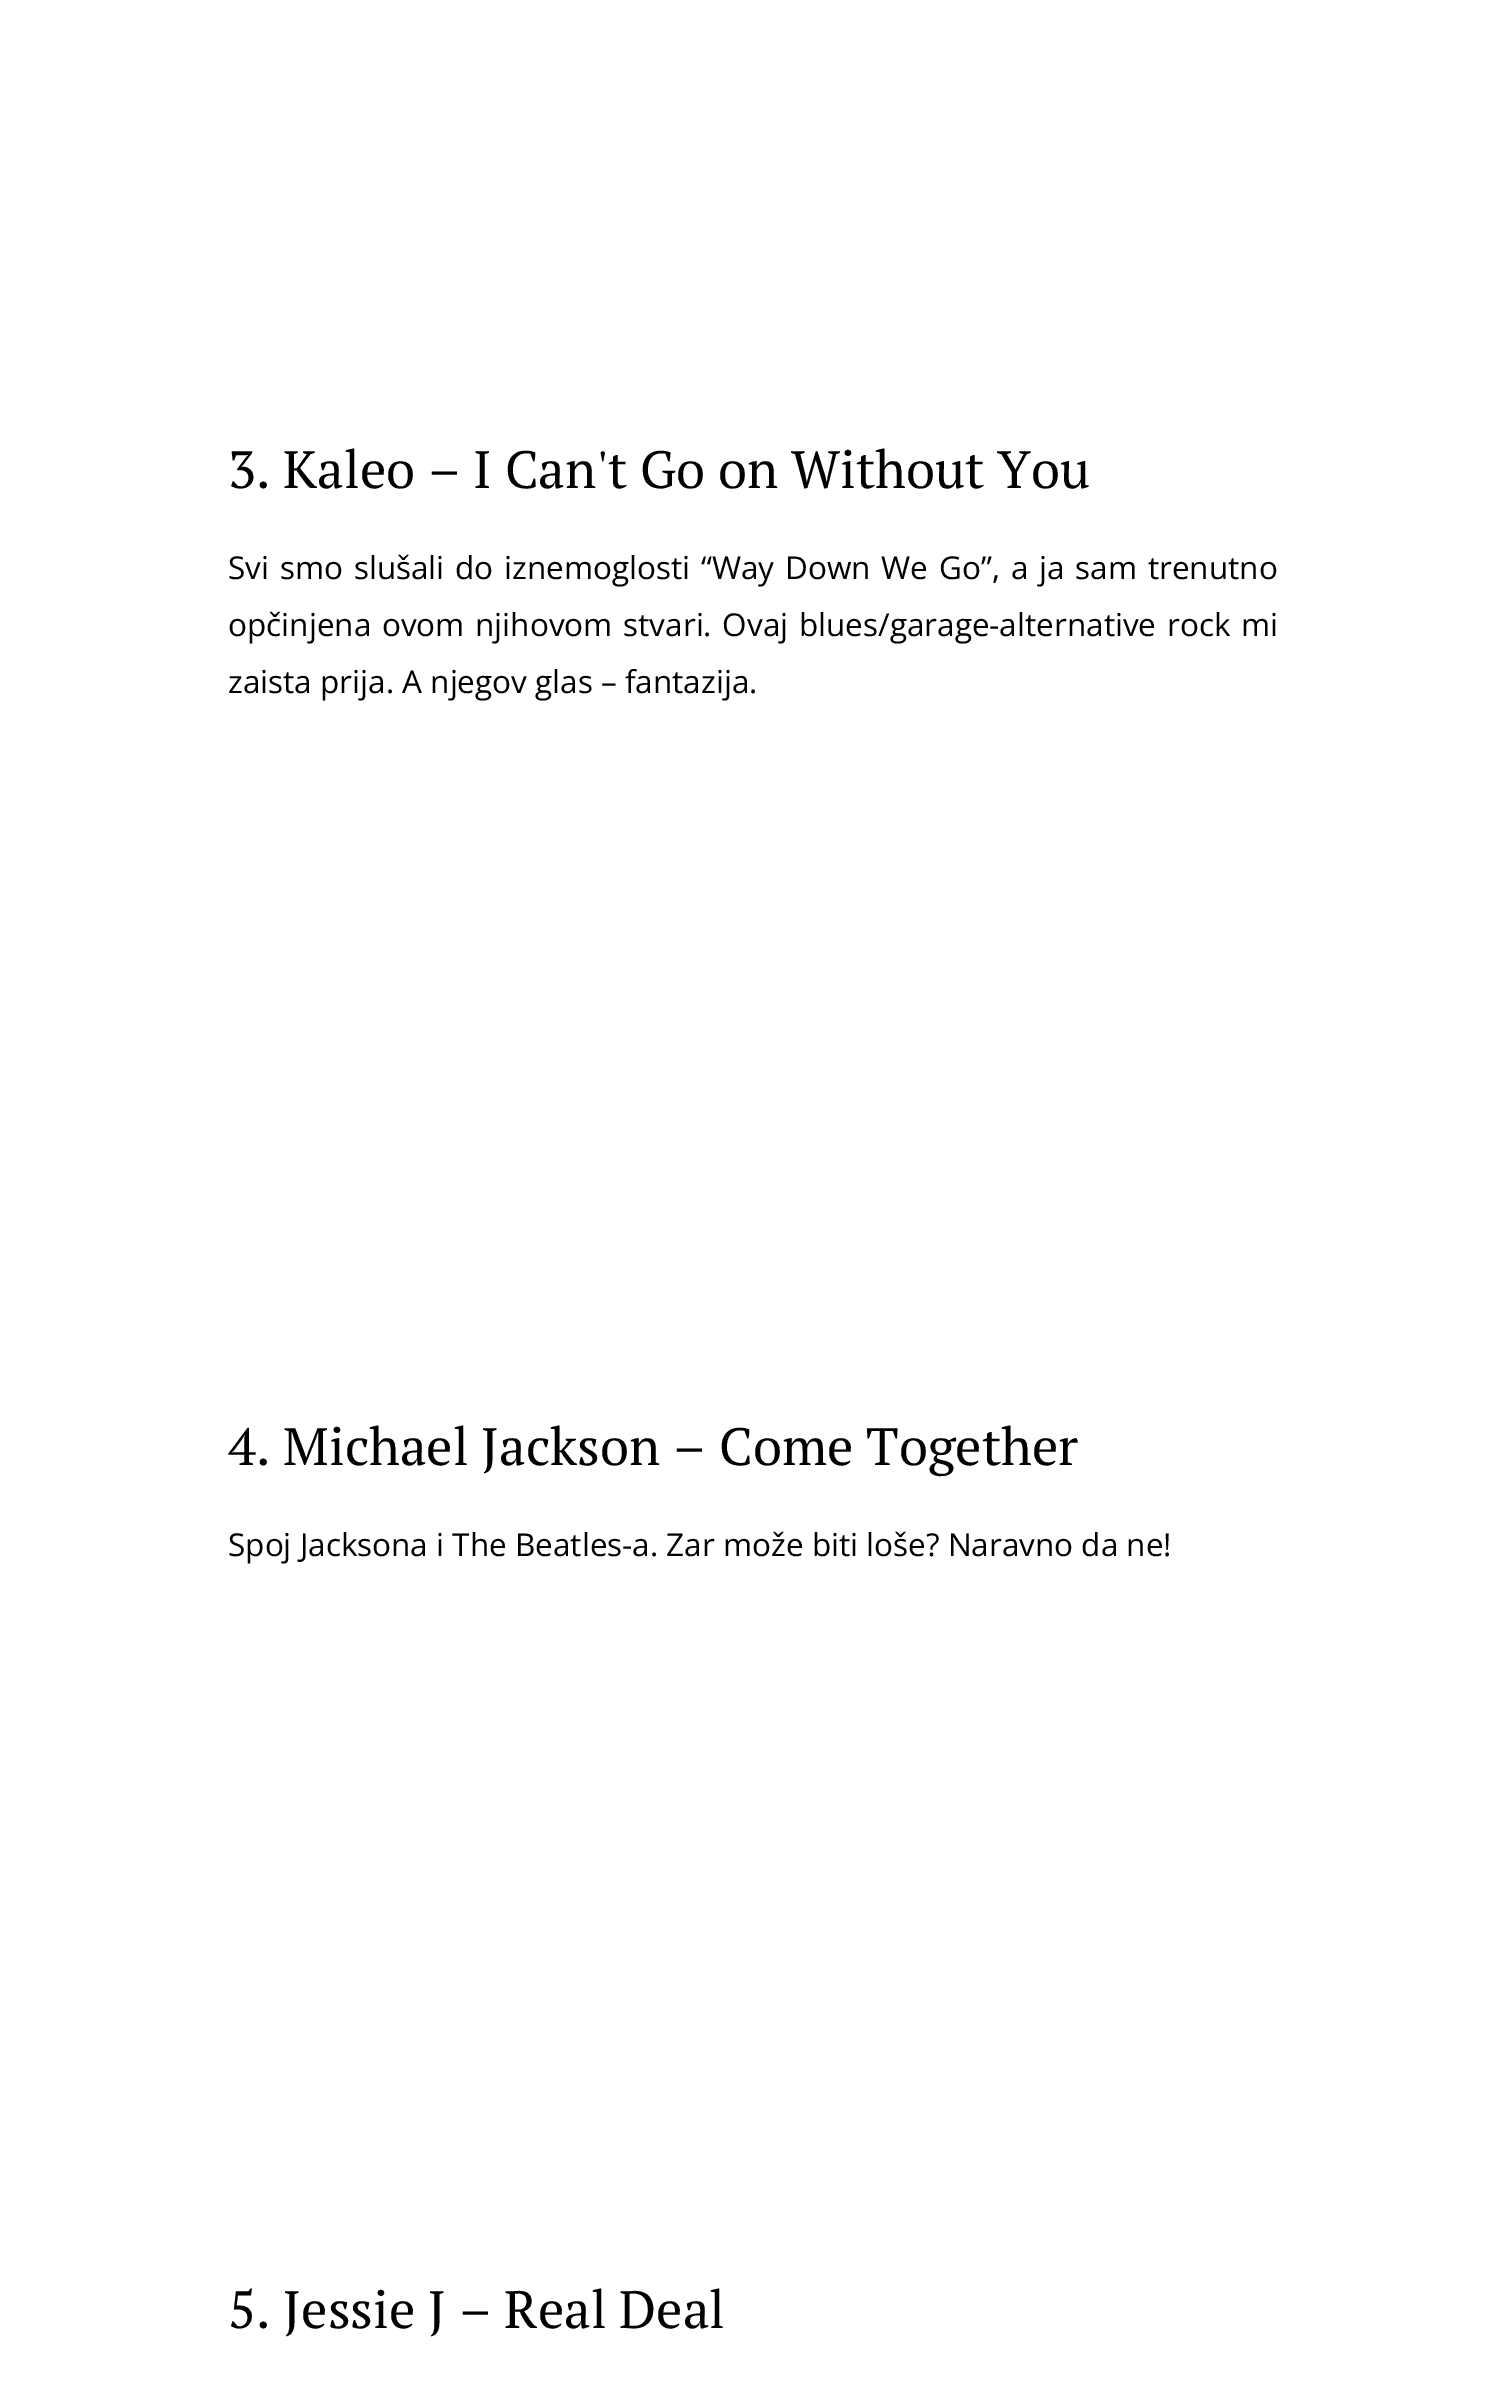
%!PS
<< /PageSize [1504 2404] >> setpagedevice
0 2404 translate 1 -1 scale
4 setmiterlimit
1 setgray
0 0 1504 2404 rectfill
/PTSerif-Regular [52.5 0 0 -52.5 0 0] selectfont
0 setgray
228 488 moveto (3. Kaleo – I Can't Go on Without You) show
/OpenSans-Regular [31.5 0 0 -31.5 0 0] selectfont
228 579 moveto 2.6 0 32 (Svi smo slušali do iznemoglosti “Way Down We Go”, a ja sam trenutno) widthshow
228 636 moveto 2.5 0 32 (opčinjena ovom njihovom stvari. Ovaj blues/garage-alternative rock mi) widthshow
228 693 moveto (zaista prija. A njegov glas – fantazija.) show
/PTSerif-Regular [52.5 0 0 -52.5 0 0] selectfont
228 1465 moveto (4. Michael Jackson – Come Together) show
/OpenSans-Regular [31.5 0 0 -31.5 0 0] selectfont
228 1556 moveto (Spoj Jacksona i The Beatles-a. Zar može biti loše? Naravno da ne!) show
/PTSerif-Regular [52.5 0 0 -52.5 0 0] selectfont
228 2328 moveto (5. Jessie J – Real Deal) show
showpage
